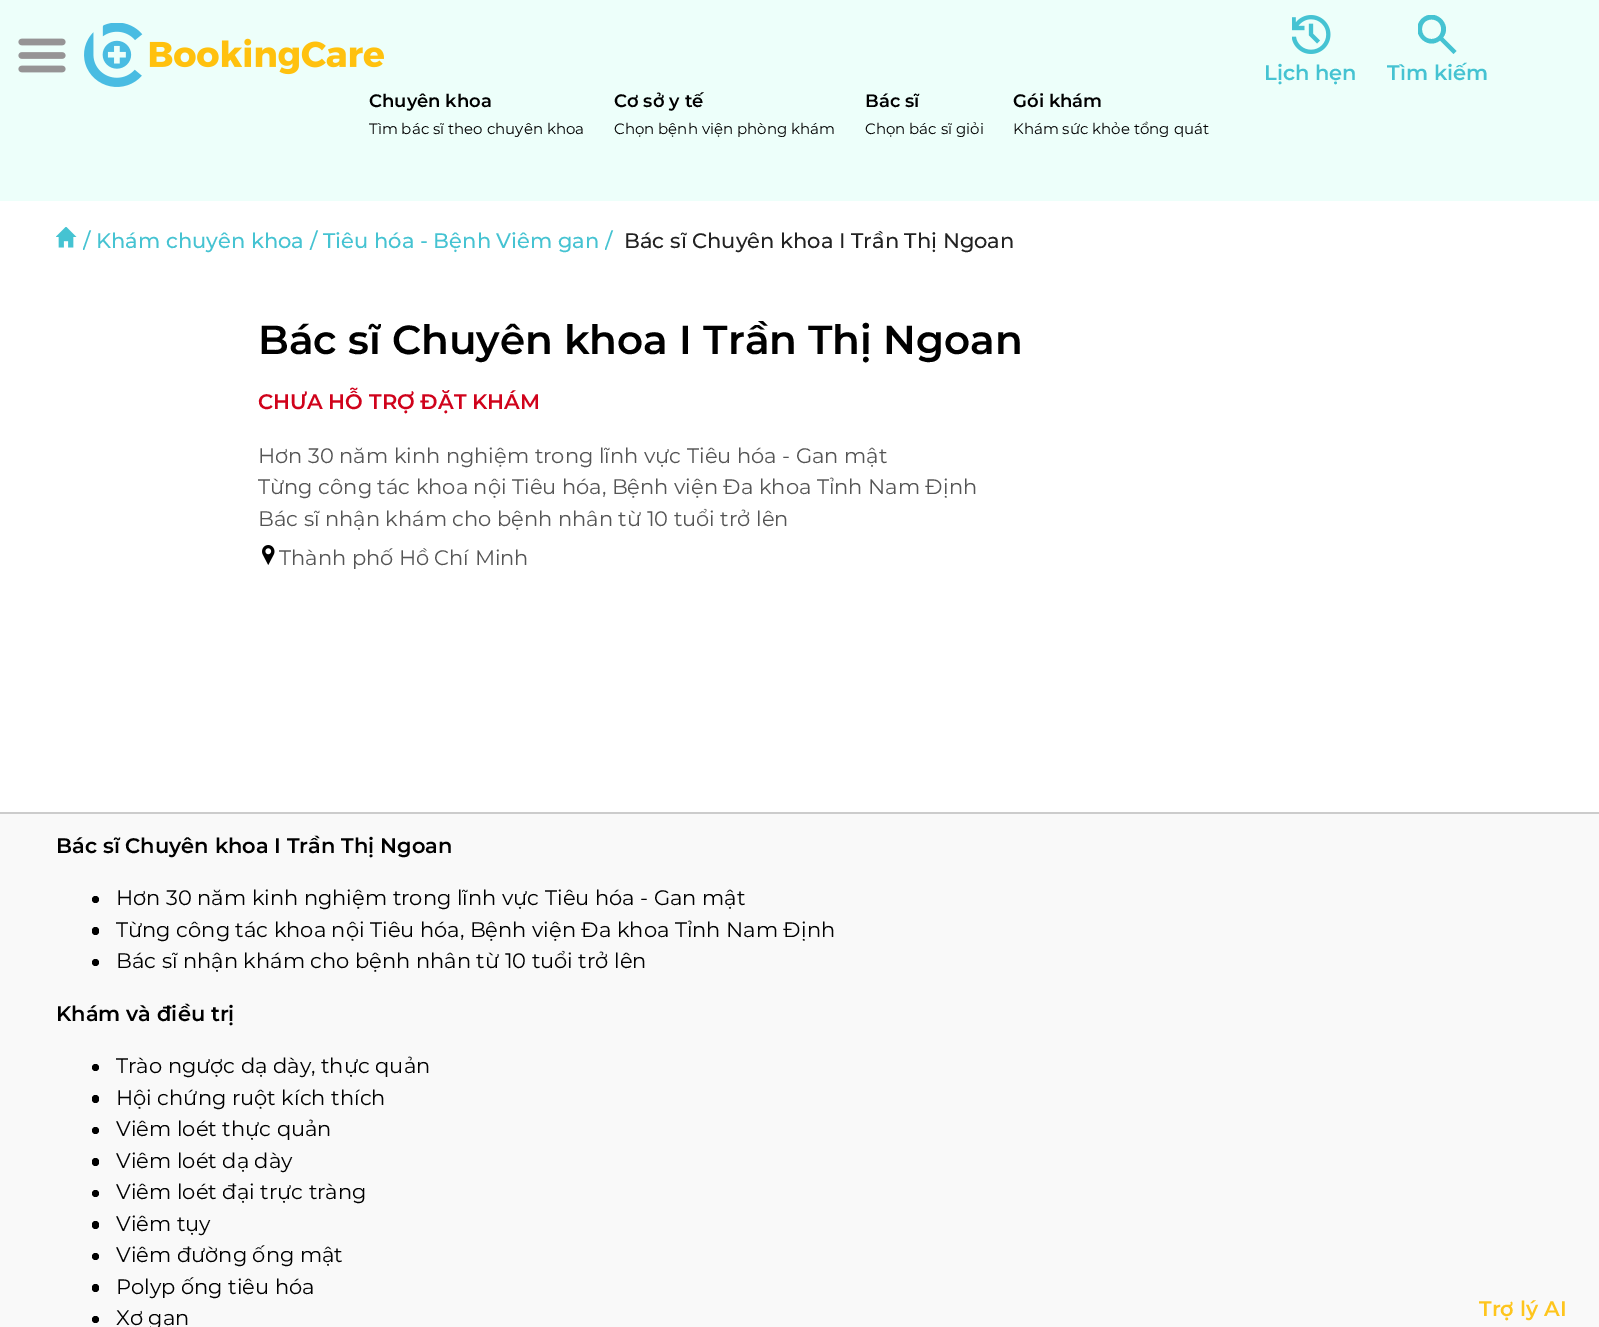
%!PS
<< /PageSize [1599 1327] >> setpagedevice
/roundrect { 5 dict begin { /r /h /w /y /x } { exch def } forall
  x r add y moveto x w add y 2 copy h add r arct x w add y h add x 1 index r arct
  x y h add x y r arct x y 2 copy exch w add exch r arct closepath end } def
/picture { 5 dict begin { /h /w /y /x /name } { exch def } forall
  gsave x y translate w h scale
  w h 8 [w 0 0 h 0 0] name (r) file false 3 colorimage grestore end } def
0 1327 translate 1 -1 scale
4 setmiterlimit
1 setgray
0 0 1599 1327 rectfill
0.929 1 0.98 setrgbcolor
0 0 1599 201 rectfill
(img1.rgb) 18 38 48 35 picture
(img2.rgb) 84 23 300 64 picture
(img3.rgb) 1292 15 39 39 picture
/Montserrat-SemiBold [21 0 0 -21 0 0] selectfont
0.271 0.765 0.824 setrgbcolor
1264 80 moveto (Lịch hẹn) show
gsave
1418 15 39 39 rectclip
newpath 1453.5 54 moveto 1440 40.5 lineto 1426.5 51 1409 31.5 1421.5 19 curveto 1434 6.5 1453.5 24 1443 37.5 curveto 1456.5 51 lineto closepath 1431.5 39 moveto 1444.5 39 1444.5 19.5 1431.5 19.5 curveto 1418.5 19.5 1419 39 1431.5 39 curveto fill
grestore
1387 80 moveto (Tìm kiếm) show
/Montserrat-SemiBold [18 0 0 -18 0 0] selectfont
0 setgray
369 107 moveto (Chuyên khoa) show
/Montserrat-Regular [15 0 0 -15 0 0] selectfont
369 134 moveto (Tìm bác sĩ theo chuyên khoa) show
/Montserrat-SemiBold [18 0 0 -18 0 0] selectfont
614 107 moveto (Cơ sở y tế) show
/Montserrat-Regular [15 0 0 -15 0 0] selectfont
614 134 moveto (Chọn bệnh viện phòng khám) show
/Montserrat-SemiBold [18 0 0 -18 0 0] selectfont
865 107 moveto (Bác sĩ) show
/Montserrat-Regular [15 0 0 -15 0 0] selectfont
865 134 moveto (Chọn bác sĩ giỏi) show
/Montserrat-SemiBold [18 0 0 -18 0 0] selectfont
1013 107 moveto (Gói khám) show
/Montserrat-Regular [15 0 0 -15 0 0] selectfont
1013 134 moveto (Khám sức khỏe tổng quát) show
(img4.rgb) 56 227 21 21 picture
gsave
83 225 931 32 rectclip
/Montserrat-Medium [21 0 0 -21 0 0] selectfont
0.271 0.765 0.824 setrgbcolor
83 248 moveto (/) show
grestore
/Montserrat-Medium [21 0 0 -21 0 0] selectfont
0.271 0.765 0.824 setrgbcolor
96 248 moveto (Khám chuyên khoa) show
310 248 moveto (/ Tiêu hóa - Bệnh Viêm gan) show
gsave
605 225 409 32 rectclip
605 248 moveto (/) show
grestore
0.133 setgray
624 248 moveto (Bác sĩ Chuyên khoa I Trần Thị Ngoan) show
/Montserrat-SemiBold [40.5 0 0 -40.5 0 0] selectfont
0 setgray
258 354 moveto (Bác sĩ Chuyên khoa I Trần Thị Ngoan) show
/Montserrat-SemiBold [21 0 0 -21 0 0] selectfont
0.816 0.008 0.106 setrgbcolor
258 409 moveto (CHƯA HỖ TRỢ ĐẶT KHÁM) show
/Montserrat-Regular [21 0 0 -21 0 0] selectfont
0.333 setgray
258 463 moveto (Hơn 30 năm kinh nghiệm trong lĩnh vực Tiêu hóa - Gan mật) show
258 494 moveto (Từng công tác khoa nội Tiêu hóa, Bệnh viện Đa khoa Tỉnh Nam Định) show
258 526 moveto (Bác sĩ nhận khám cho bệnh nhân từ 10 tuổi trở lên) show
(img5.rgb) 262 545 13 20 picture
279 565 moveto (Thành phố Hồ Chí Minh) show
0.976 setgray
0 814 1599 513 rectfill
0.8 setgray
0 812 1599 2 rectfill
/Montserrat-SemiBold [21 0 0 -21 0 0] selectfont
0 setgray
56 853 moveto (Bác sĩ Chuyên khoa I Trần Thị Ngoan) show
newpath 95.5 899.5 3.5 0 360 arc closepath fill
/Montserrat-Regular [21 0 0 -21 0 0] selectfont
116 905 moveto (Hơn 30 năm kinh nghiệm trong lĩnh vực Tiêu hóa - Gan mật) show
92 927 7 8 3.5 roundrect fill
116 937 moveto (Từng công tác khoa nội Tiêu hóa, Bệnh viện Đa khoa Tỉnh Nam Định) show
newpath 95.5 962.5 3.5 0 360 arc closepath fill
116 968 moveto (Bác sĩ nhận khám cho bệnh nhân từ 10 tuổi trở lên) show
/Montserrat-SemiBold [21 0 0 -21 0 0] selectfont
56 1021 moveto (Khám và điều trị) show
newpath 95.5 1067.5 3.5 0 360 arc closepath fill
/Montserrat-Regular [21 0 0 -21 0 0] selectfont
116 1073 moveto (Trào ngược dạ dày, thực quản) show
92 1095 7 8 3.5 roundrect fill
116 1105 moveto (Hội chứng ruột kích thích) show
newpath 95.5 1130.5 3.5 0 360 arc closepath fill
116 1136 moveto (Viêm loét thực quản) show
92 1158 7 8 3.5 roundrect fill
116 1168 moveto (Viêm loét dạ dày) show
newpath 95.5 1193.5 3.5 0 360 arc closepath fill
116 1199 moveto (Viêm loét đại trực tràng) show
92 1221 7 8 3.5 roundrect fill
116 1231 moveto (Viêm tụy) show
newpath 95.5 1256.5 3.5 0 360 arc closepath fill
116 1262 moveto (Viêm đường ống mật) show
92 1284 7 8 3.5 roundrect fill
116 1294 moveto (Polyp ống tiêu hóa) show
newpath 95.5 1319.5 3.5 0 360 arc closepath fill
116 1325 moveto (Xơ gan) show
/Montserrat-SemiBold [21 0 0 -21 0 0] selectfont
0.996 0.773 0.114 setrgbcolor
1479 1316 moveto (Trợ lý AI) show
showpage
